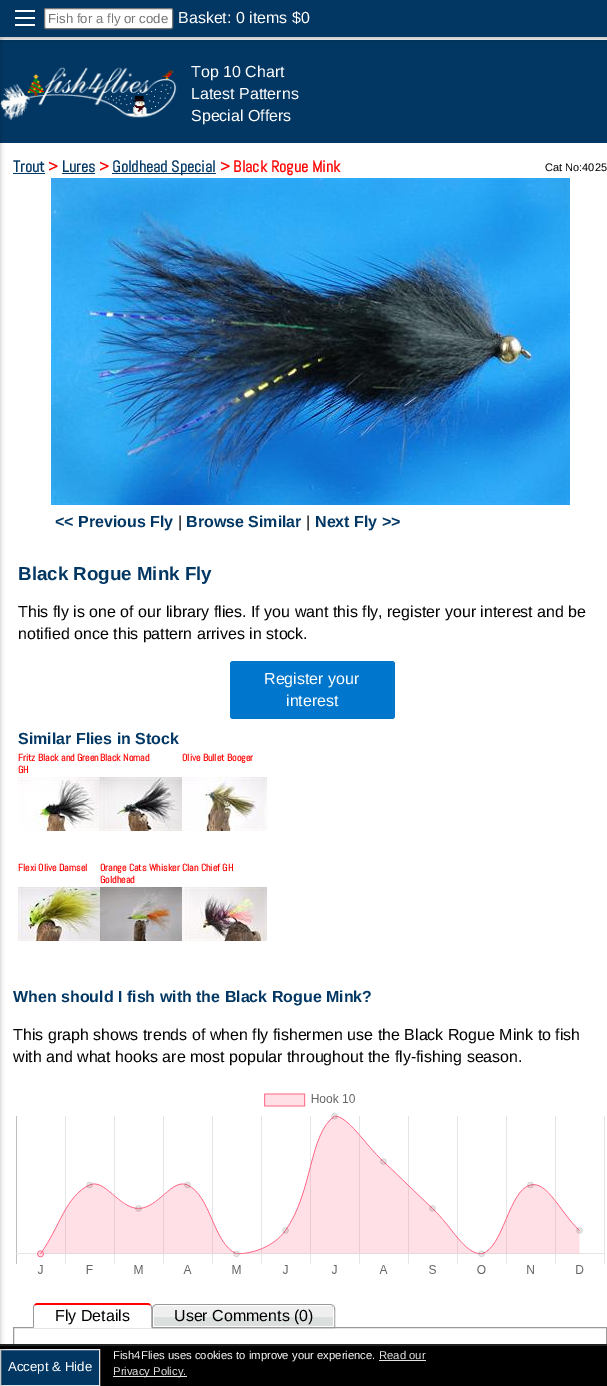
%!PS
<< /PageSize [607 1386] /PageUsesTransparency true >> setpagedevice
/alpha { dup .setfillconstantalpha .setstrokeconstantalpha } def
/roundrect { 5 dict begin { /r /h /w /y /x } { exch def } forall
  x r add y moveto x w add y 2 copy h add r arct x w add y h add x 1 index r arct
  x y h add x y r arct x y 2 copy exch w add exch r arct closepath end } def
/shadow { 12 dict begin { /a /b /q /h /w /y /x } { exch def } forall gsave /was 0 def
  9 -2 -9 { dup b mul 4 div /e exch def 1 sub .425 mul 2.718 exch exp 1 add a .99 .min exch div /now exch def
    1 1 now sub 1 was sub div sub alpha /was now def
    w h .min e 2 mul add 0 gt { x e sub y e sub w e 2 mul add h e 2 mul add
      q e add b .6 mul add w h .min 2 div e add .min 0 .max roundrect fill } if } for grestore end } def
/picture { 5 dict begin { /h /w /y /x /name } { exch def } forall
  gsave x y translate w h scale
  w h 8 [w 0 0 h 0 0] name (r) file false 3 colorimage grestore end } def
0 .pushpdf14devicefilter
0 1386 translate 1 -1 scale
4 setmiterlimit
1 setgray
0 0 607 1386 rectfill
0.008 0.216 0.388 setrgbcolor
0 40 607 103 rectfill
(img1.rgb) 0 67 177 53 picture
0.6 setgray
13.5 1327.5 593 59 rectstroke
0 setgray
0 1346 607 40 rectfill
0.133 setgray
0 1344 607 2 rectfill
0.008 0.216 0.388 setrgbcolor
newpath 0.5 1349.5 moveto 99.5 1349.5 lineto 99.5 1385.5 lineto 0.5 1385.5 lineto closepath gsave fill grestore
0.894 setgray
stroke
0 setgray
-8 38 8 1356 0 2.5 0.26 shadow
0 2 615 37 0 2.5 0.26 shadow
0.008 0.216 0.388 setrgbcolor
0 0 607 37 rectfill
1 setgray
15 10 20 2 rectfill
15 17 20 2 rectfill
15 24 20 2 rectfill
44.5 8.5 128 20 1.5 roundrect gsave fill grestore
0.463 setgray
stroke
/LiberationSans-Regular [13.25 0 0 -13.25 0 0] selectfont
0.459 setgray
48 23 moveto (Fish for a fly or code) show
/LiberationSans-Regular [16 0 0 -16 0 0] selectfont
1 setgray
178 23 moveto (Basket: 0 items $0) show
191 77 moveto (Top 10 Chart) show
191 99 moveto (Latest Patterns) show
191 121 moveto (Special Offers) show
/Abel-Bold [16 0 0 -16 0 0] selectfont
0.008 0.216 0.388 setrgbcolor
13 172 moveto (Trout) show
13 173 32 1 rectfill
1 0 0 setrgbcolor
48 172 moveto (>) show
0.008 0.216 0.388 setrgbcolor
62 172 moveto (Lures) show
62 173 33 1 rectfill
1 0 0 setrgbcolor
99 172 moveto (>) show
0.008 0.216 0.388 setrgbcolor
112 173 104 1 rectfill
112 172 moveto (Goldhead Special) show
1 0 0 setrgbcolor
220 172 moveto (> Black Rogue Mink) show
/LiberationSans-Regular [11 0 0 -11 0 0] selectfont
0 setgray
545 171 moveto (Cat No:4025) show
(img2.rgb) 51 178 519 327 picture
/LiberationSans-Bold [16 0 0 -16 0 0] selectfont
0.008 0.216 0.388 setrgbcolor
55 527 moveto (<< Previous Fly) show
/LiberationSans-Regular [16 0 0 -16 0 0] selectfont
0 setgray
178 527 moveto (|) show
/LiberationSans-Bold [16 0 0 -16 0 0] selectfont
0.008 0.216 0.388 setrgbcolor
186 527 moveto (Browse Similar) show
/LiberationSans-Regular [16 0 0 -16 0 0] selectfont
0 setgray
306 527 moveto (|) show
/LiberationSans-Bold [16 0 0 -16 0 0] selectfont
0.008 0.216 0.388 setrgbcolor
315 527 moveto (Next Fly >>) show
/LiberationSans-Bold [18.75 0 0 -18.75 0 0] selectfont
18 580 moveto (Black Rogue Mink Fly) show
/LiberationSans-Regular [16 0 0 -16 0 0] selectfont
0 setgray
18 617 moveto (This fly is one of our library flies. If you want this fly, register your interest and be) show
18 639 moveto (notified once this pattern arrives in stock.) show
0 0.467 0.8 setrgbcolor
230 661 165 58 3 roundrect fill
1 setgray
264 684 moveto (Register your) show
286 706 moveto (interest) show
/LiberationSans-Bold [16 0 0 -16 0 0] selectfont
0.008 0.216 0.388 setrgbcolor
18 744 moveto (Similar Flies in Stock) show
/Abel-Bold [10 0 0 -10 0 0] selectfont
1 0 0 setrgbcolor
18 761 moveto (Fritz Black and Green) show
18 773 moveto (GH) show
(img3.rgb) 18 777 82 54 picture
100 761 moveto (Black Nomad) show
(img4.rgb) 100 777 82 54 picture
182 761 moveto (Olive Bullet Booger) show
(img5.rgb) 182 777 85 54 picture
18 871 moveto (Flexi Olive Damsel) show
(img6.rgb) 18 887 82 54 picture
100 871 moveto (Orange Cats Whisker Clan Chief GH) show
100 883 moveto (Goldhead) show
(img7.rgb) 100 887 82 54 picture
(img8.rgb) 182 887 85 54 picture
/LiberationSans-Bold [16 0 0 -16 0 0] selectfont
0.008 0.216 0.388 setrgbcolor
13 1002 moveto (When should I fish with the Black Rogue Mink?) show
/LiberationSans-Regular [16 0 0 -16 0 0] selectfont
0 setgray
13 1040 moveto (This graph shows trends of when fly fishermen use the Black Rogue Mink to fish) show
13 1062 moveto (with and what hooks are most popular throughout the fly-fishing season.) show
(img9.rgb) 16 1093 589 181 picture
1 0 0 setrgbcolor
newpath 38 1303 moveto 36 1303 35 1304 34 1305 curveto 35 1306 lineto 35 1305 37 1305 38 1305 curveto 147 1305 lineto 148 1305 150 1305 150 1306 curveto 151 1305 lineto 150 1304 149 1303 147 1303 curveto closepath fill
0.6 setgray
newpath 152 1328 moveto 152 1308 lineto 152 1307 151.5 1305.5 151 1305 curveto 150.5 1306.5 lineto 151 1306.5 151 1307.5 151 1308 curveto 151 1327 lineto closepath fill
1 setgray
newpath 152 1328 moveto 151 1327 lineto 34 1327 lineto 33 1328 lineto closepath fill
0.6 setgray
newpath 33 1328 moveto 34 1327 lineto 34 1308 lineto 34 1307.5 34 1306.5 34.5 1306.5 curveto 34 1305 lineto 33.5 1305.5 33 1307 33 1308 curveto closepath fill
1 setgray
newpath 34 1308 moveto 34 1327 lineto 151 1327 lineto 151 1324 152 1308 150 1306 curveto 150 1326 lineto 35 1326 lineto 35 1306 lineto closepath 38 1305 moveto 35 1306 lineto 150 1306 lineto 147 1305 lineto closepath eofill
0 setgray
55 1321 moveto (Fly Details) show
gsave
newpath 157 1304 moveto 330 1304 lineto 333 1304 335 1306 335 1309 curveto 335 1328 lineto 152 1328 lineto 152 1309 lineto 152 1306 154 1304 157 1304 curveto closepath clip newpath
0.937 setgray
152 1305 183 12 rectfill
grestore
0.859 0.875 0.871 setrgbcolor
154 1317 179 9 rectfill
0.6 setgray
newpath 157 1304.5 moveto 330 1304.5 lineto 332.5 1304.5 334.5 1306.5 334.5 1309 curveto 334.5 1327.5 lineto 152.5 1327.5 lineto 152.5 1309 lineto 152.5 1306.5 154.5 1304.5 157 1304.5 curveto closepath stroke
1 setgray
newpath 153 1309 moveto 153 1327 lineto 334 1327 lineto 334 1323 335 1309 333 1306 curveto 333 1326 lineto 154 1326 lineto 154 1306 lineto closepath 157 1305 moveto 154 1306 lineto 333 1306 lineto 330 1305 lineto closepath eofill
0 setgray
174 1321 moveto (User Comments \(0\)) show
/LiberationSans-Regular [13.25 0 0 -13.25 0 0] selectfont
1 setgray
8 1371 moveto (Accept & Hide) show
/LiberationSans-Regular [11.3 0 0 -11.3 0 0] selectfont
113 1359 moveto (Fish4Flies uses cookies to improve your experience.) show
0.894 setgray
379 1359 moveto (Read our) show
379 1360 47 1 rectfill
113 1376 74 1 rectfill
113 1375 moveto (Privacy Policy.) show
.poppdf14devicefilter showpage
